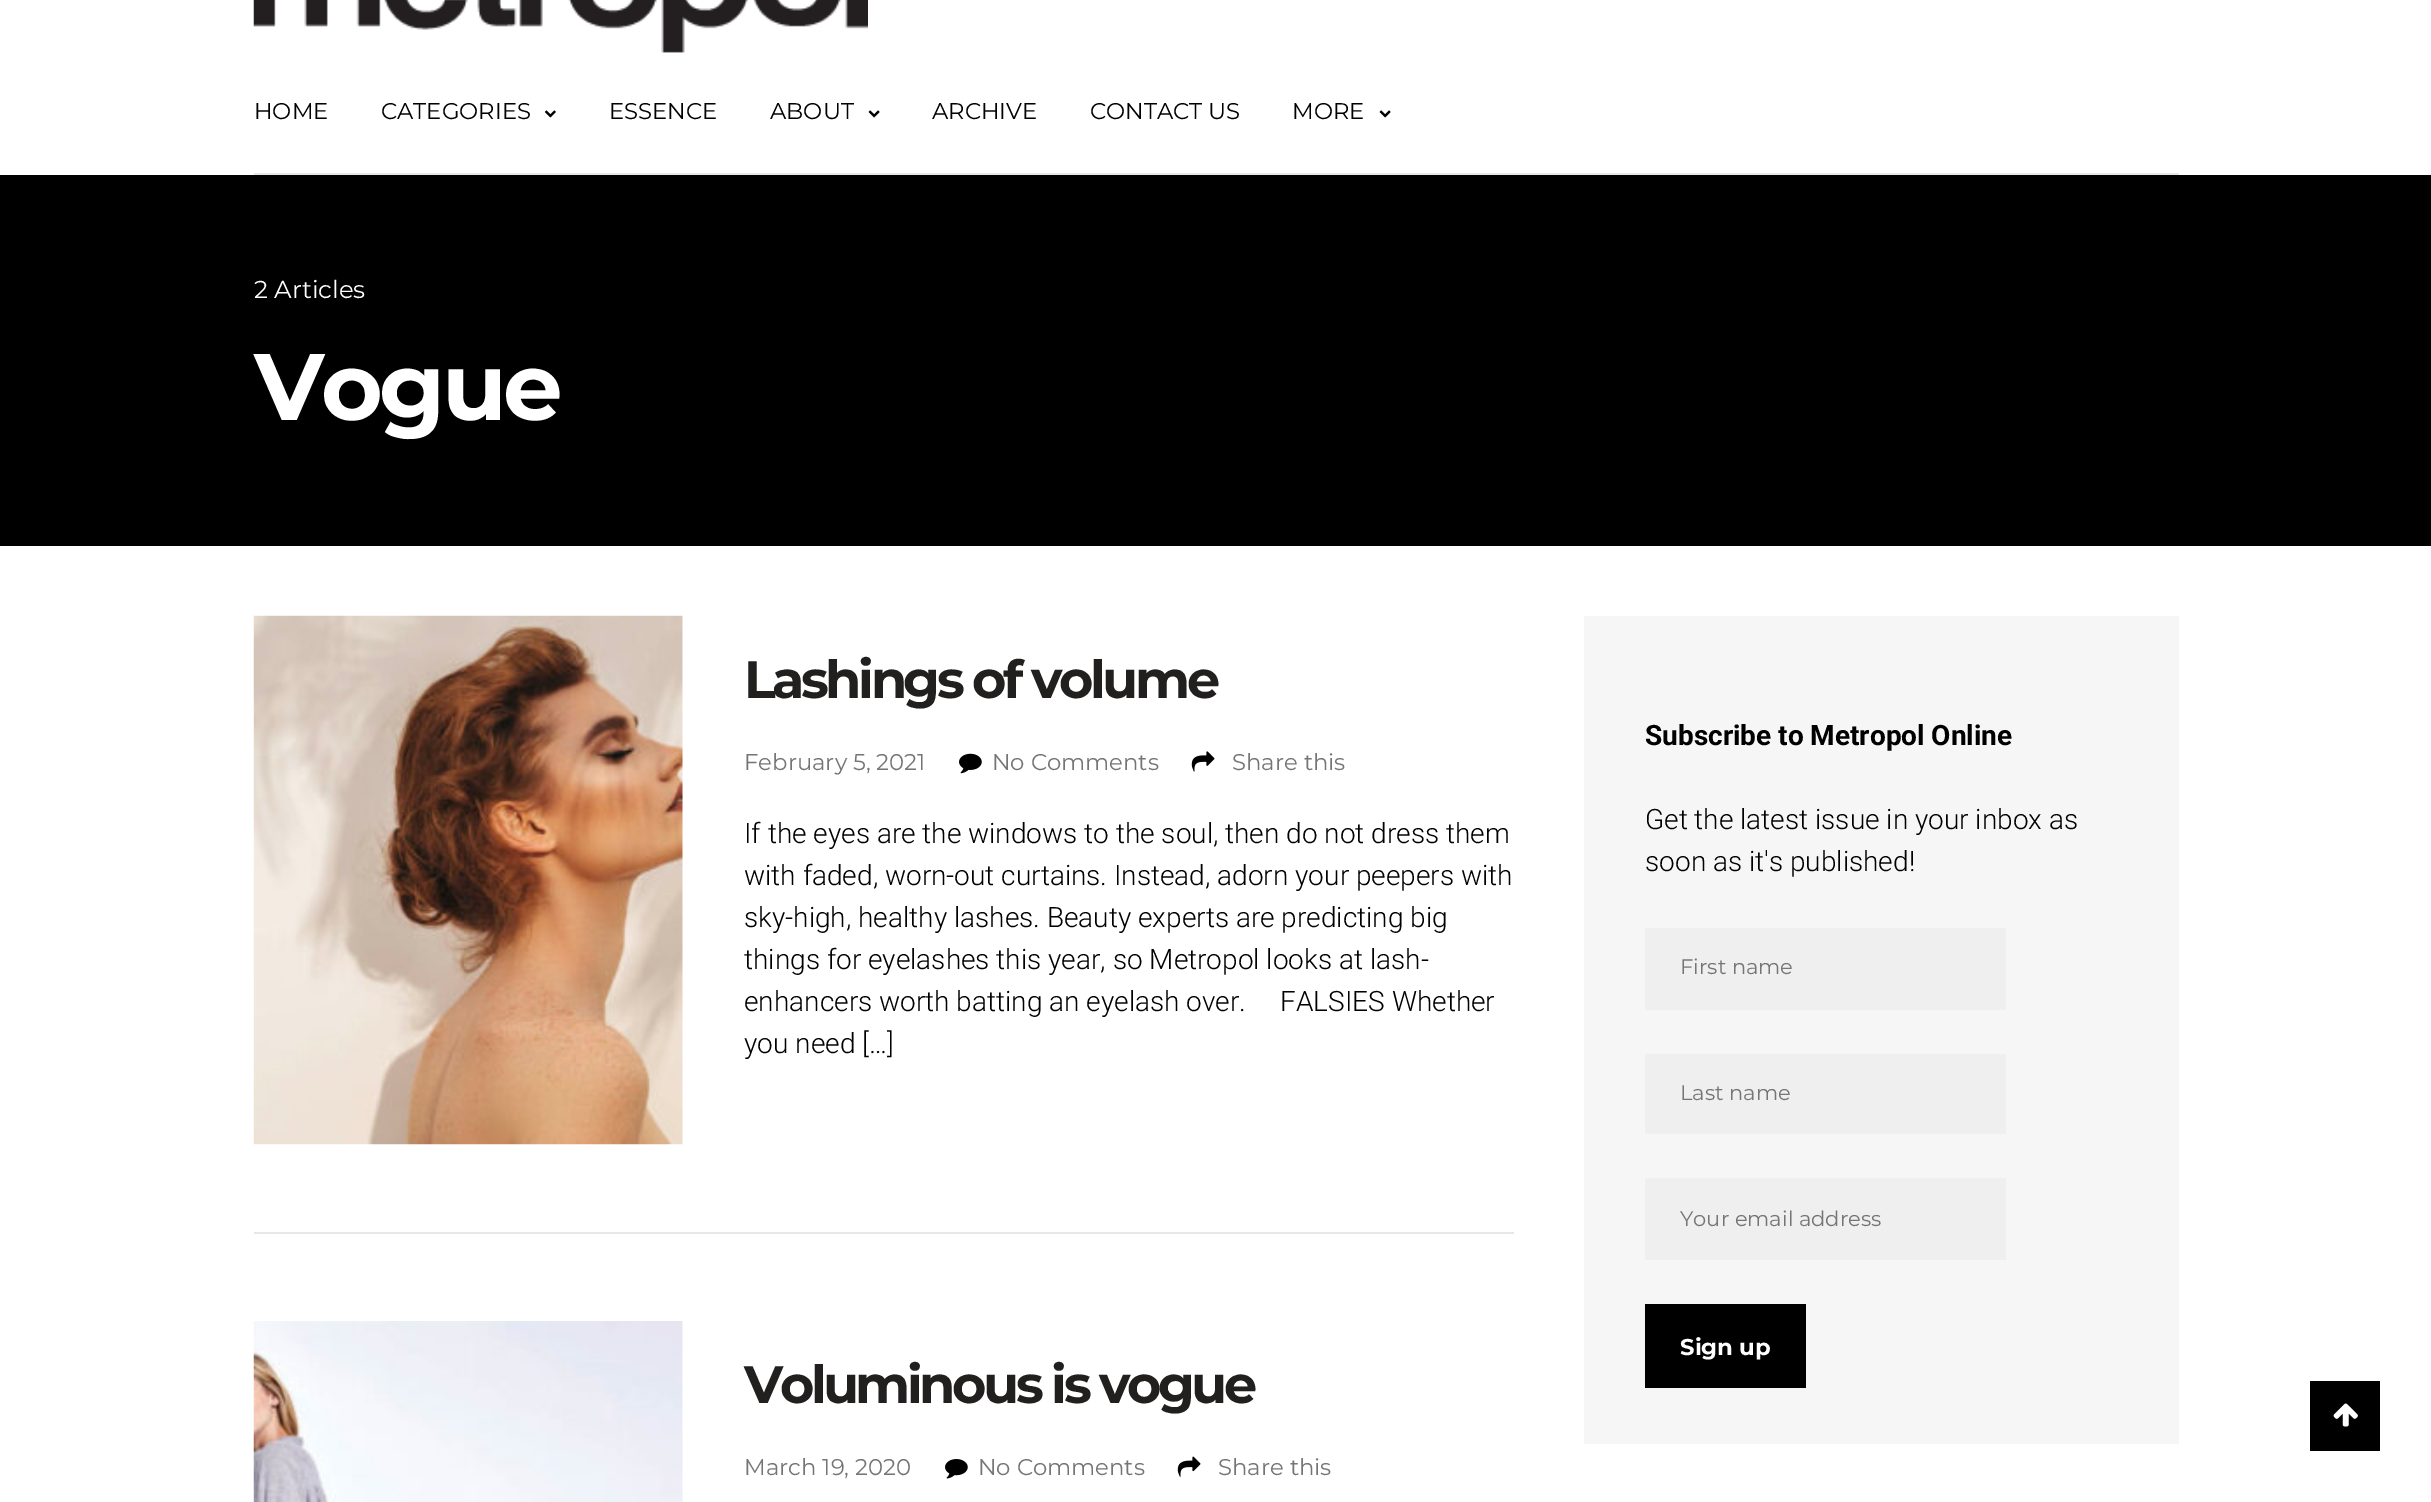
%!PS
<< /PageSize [2431 1502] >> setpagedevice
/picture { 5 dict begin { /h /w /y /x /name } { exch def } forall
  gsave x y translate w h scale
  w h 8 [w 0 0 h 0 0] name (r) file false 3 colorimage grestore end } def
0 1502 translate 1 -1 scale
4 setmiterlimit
1 setgray
0 0 2431 1502 rectfill
(img1.rgb) 253 0 615 53 picture
0.91 setgray
254 173 1925 2 rectfill
/Montserrat-Regular [22.75 0 0 -22.75 0 0] selectfont
0 setgray
254 119 moveto (HOME) show
381 119 moveto (CATEGORIES) show
(img2.rgb) 544 110 12 8 picture
609 119 moveto (ESSENCE) show
770 119 moveto (ABOUT) show
(img3.rgb) 868 110 12 8 picture
932 119 moveto (ARCHIVE) show
1090 119 moveto (CONTACT US) show
1292 119 moveto (MORE) show
(img3.rgb) 1379 110 12 8 picture
0 175 2431 371 rectfill
/Montserrat-Regular [24.5 0 0 -24.5 0 0] selectfont
1 setgray
254 298 moveto (2 Articles) show
/Montserrat-Bold [94.5 0 0 -94.5 0 0] selectfont
254 420 moveto -3.5 0 (Vogue) ashow
0.91 setgray
254 1232 1260 2 rectfill
(img4.rgb) 253 615 430 530 picture
/Montserrat-Bold [52.5 0 0 -52.5 0 0] selectfont
0.129 0.125 0.122 setrgbcolor
744 698 moveto -3.5 0 (Lashings of volume) ashow
/Montserrat-Regular [22.75 0 0 -22.75 0 0] selectfont
0.459 setgray
744 770 moveto (February 5, 2021) show
(img5.rgb) 959 753 23 21 picture
992 770 moveto (No Comments) show
(img6.rgb) 1191 751 24 21 picture
1232 770 moveto (Share this) show
/Roboto-Light [28 0 0 -28 0 0] selectfont
0 setgray
744 843 moveto (If the eyes are the windows to the soul, then do not dress them) show
744 885 moveto (with faded, worn-out curtains. Instead, adorn your peepers with) show
744 927 moveto (sky-high, healthy lashes. Beauty experts are predicting big) show
744 969 moveto (things for eyelashes this year, so Metropol looks at lash-) show
744 1011 moveto (enhancers worth batting an eyelash over.     FALSIES Whether) show
744 1053 moveto (you need […]) show
(img7.rgb) 253 1321 430 181 picture
/Montserrat-Bold [52.5 0 0 -52.5 0 0] selectfont
0.129 0.125 0.122 setrgbcolor
744 1403 moveto -3.5 0 (Voluminous is vogue) ashow
/Montserrat-Regular [22.75 0 0 -22.75 0 0] selectfont
0.459 setgray
744 1475 moveto (March 19, 2020) show
(img8.rgb) 945 1459 23 20 picture
978 1475 moveto (No Comments) show
(img9.rgb) 1177 1456 24 21 picture
1218 1475 moveto (Share this) show
0.965 setgray
1584 616 595 828 rectfill
/Roboto-Bold [28 0 0 -28 0 0] selectfont
0 setgray
1645 745 moveto (Subscribe to Metropol Online) show
/Roboto-Light [28 0 0 -28 0 0] selectfont
1645 829 moveto (Get the latest issue in your inbox as) show
1645 871 moveto (soon as it's published!) show
0.937 setgray
1645 928 361 82 rectfill
/Montserrat-Regular [21 0 0 -21 0 0] selectfont
0.459 setgray
1680 974 moveto (First name) show
0.937 setgray
1645 1054 361 80 rectfill
0.459 setgray
1680 1100 moveto (Last name) show
0.937 setgray
1645 1178 361 82 rectfill
0.459 setgray
1680 1226 moveto (Your email address) show
0 setgray
1645 1304 161 84 rectfill
/Montserrat-Bold [22.75 0 0 -22.75 0 0] selectfont
1 setgray
1680 1355 moveto (Sign up) show
0 setgray
2310 1381 70 70 rectfill
(img10.rgb) 2333 1403 25 24 picture
showpage
